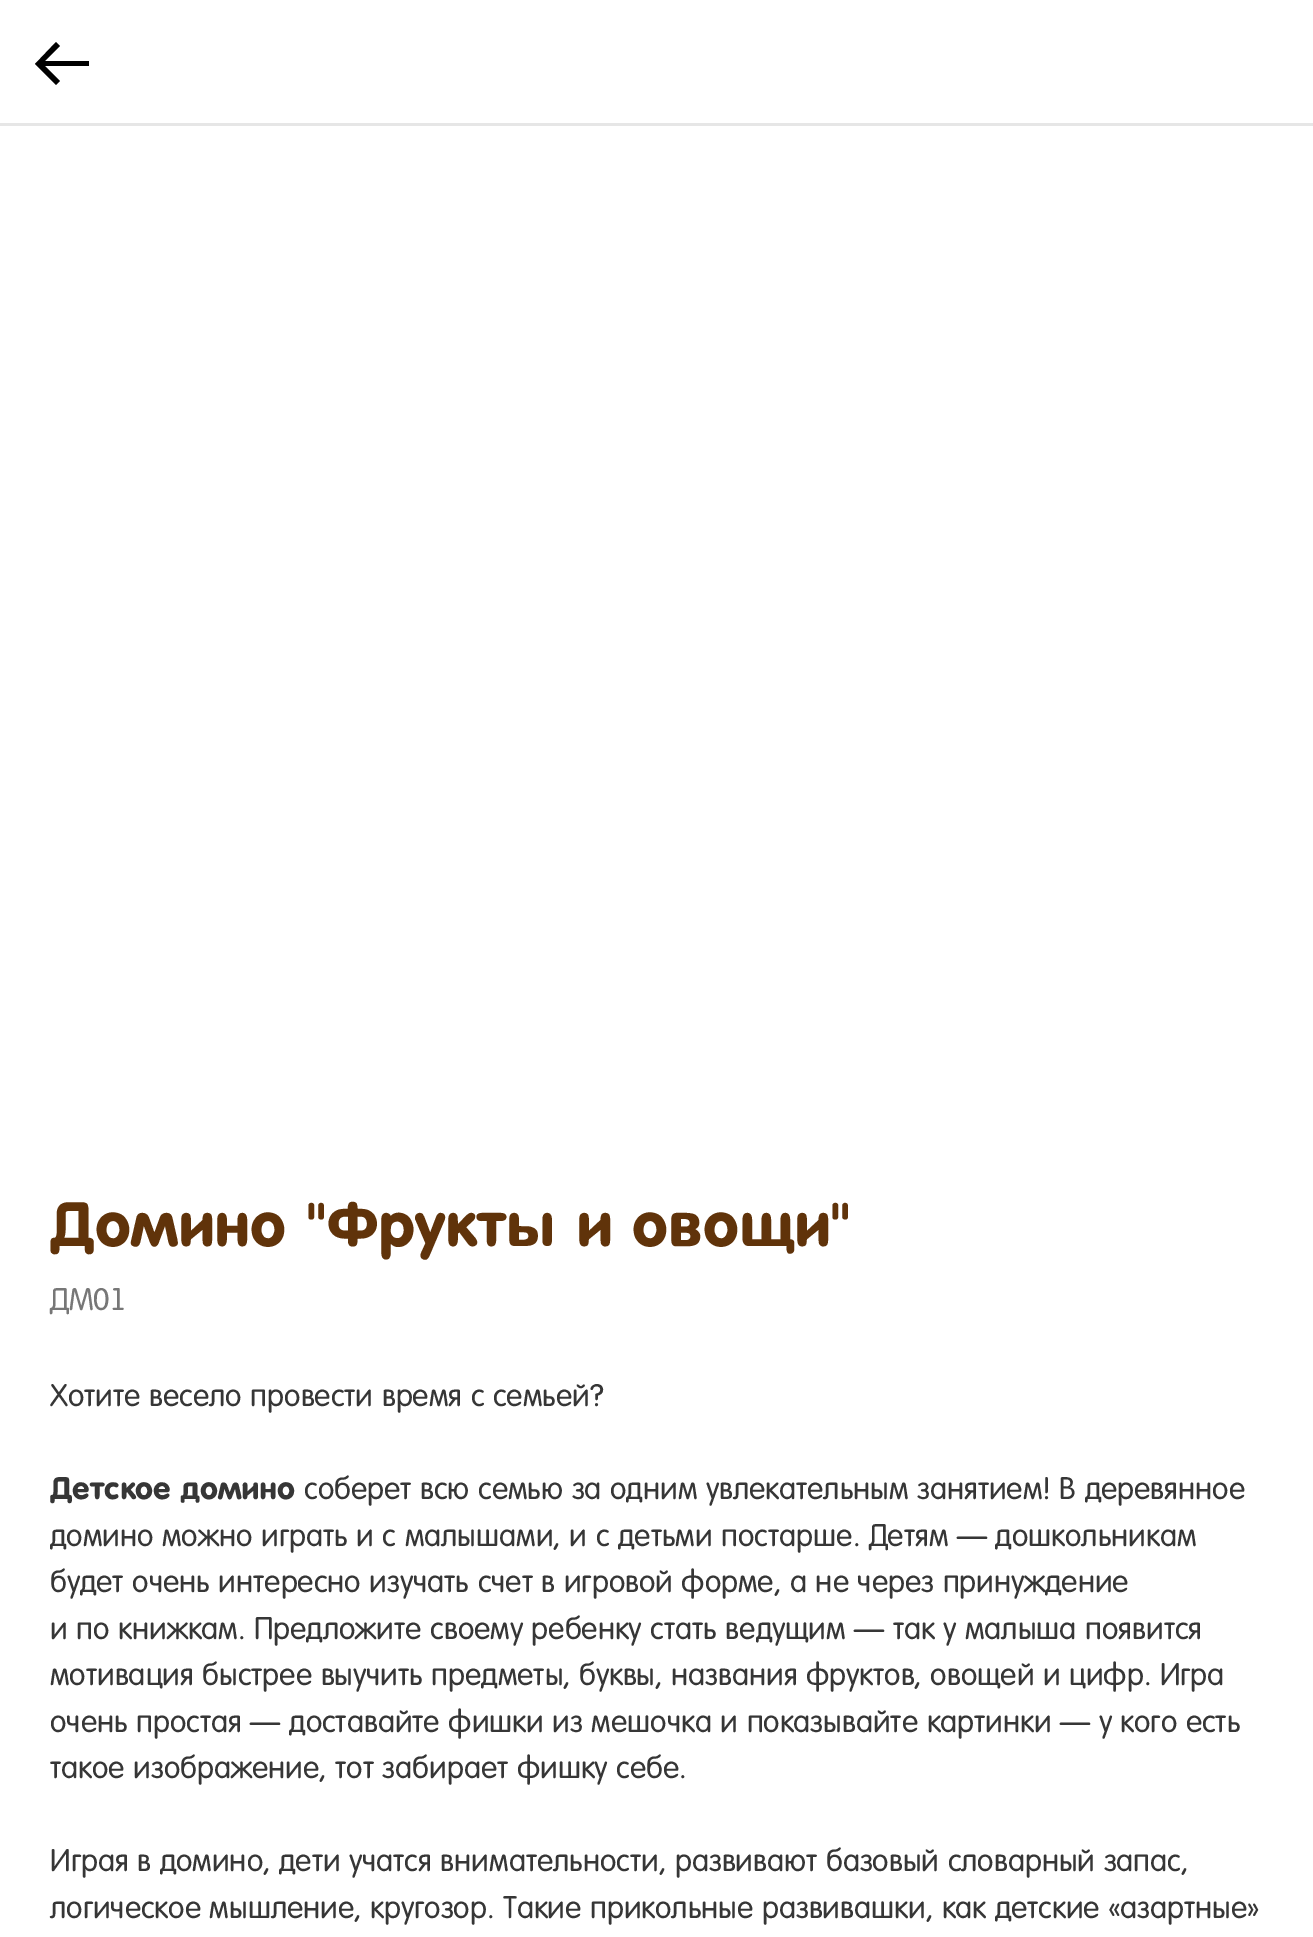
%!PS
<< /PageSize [1313 1937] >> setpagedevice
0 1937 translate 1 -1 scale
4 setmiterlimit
1 setgray
0 0 1313 1937 rectfill
0.902 setgray
0 123 1313 3 rectfill
0 setgray
newpath 56 42 moveto 60 46 lineto 45 61 lineto 89 61 lineto 89 66 lineto 45 66 lineto 60 81 lineto 56 85 lineto 35 64 lineto closepath fill
/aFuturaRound-Bold [60 0 0 -60 0 0] selectfont
0.376 0.2 0.039 setrgbcolor
50 1246 moveto (Домино "Фрукты и овощи") show
/aFuturaRound-Regular [30 0 0 -30 0 0] selectfont
0.467 setgray
50 1310 moveto (ДМ01) show
/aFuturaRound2-Regular [30 0 0 -30 0 0] selectfont
0.212 setgray
50 1406 moveto (Хотите весело провести время с семьей?) show
/aFuturaRound-Bold [30 0 0 -30 0 0] selectfont
50 1499 moveto (Детское домино) show
/aFuturaRound2-Regular [30 0 0 -30 0 0] selectfont
304 1499 moveto (соберет всю семью за одним увлекательным занятием! В деревянное) show
50 1546 moveto (домино можно играть и с малышами, и с детьми постарше. Детям — дошкольникам) show
50 1592 moveto (будет очень интересно изучать счет в игровой форме, а не через принуждение) show
50 1639 moveto (и по книжкам. Предложите своему ребенку стать ведущим — так у малыша появится) show
50 1685 moveto (мотивация быстрее выучить предметы, буквы, названия фруктов, овощей и цифр. Игра) show
50 1732 moveto (очень простая — доставайте фишки из мешочка и показывайте картинки — у кого есть) show
50 1778 moveto (такое изображение, тот забирает фишку себе.) show
50 1871 moveto (Играя в домино, дети учатся внимательности, развивают базовый словарный запас,) show
50 1918 moveto (логическое мышление, кругозор. Такие прикольные развивашки, как детские «азартные») show
showpage
